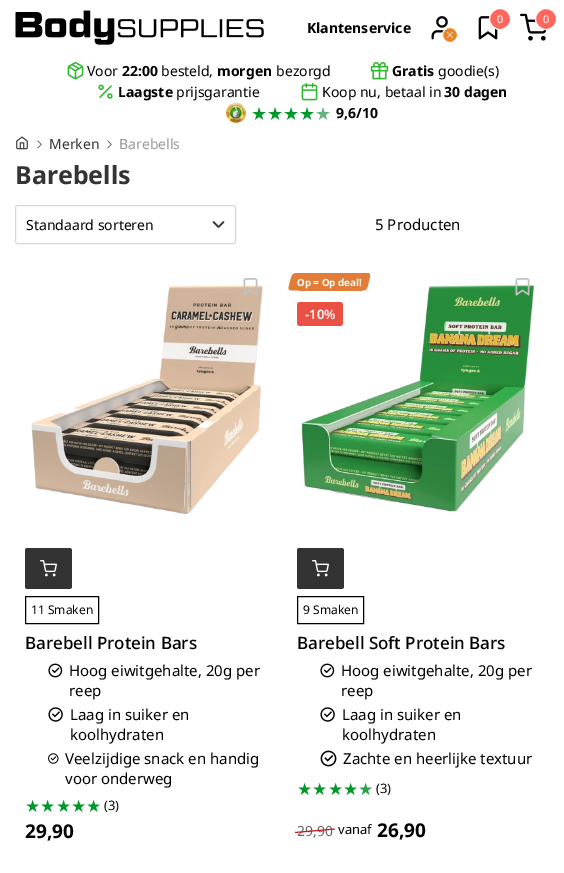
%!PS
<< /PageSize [564 873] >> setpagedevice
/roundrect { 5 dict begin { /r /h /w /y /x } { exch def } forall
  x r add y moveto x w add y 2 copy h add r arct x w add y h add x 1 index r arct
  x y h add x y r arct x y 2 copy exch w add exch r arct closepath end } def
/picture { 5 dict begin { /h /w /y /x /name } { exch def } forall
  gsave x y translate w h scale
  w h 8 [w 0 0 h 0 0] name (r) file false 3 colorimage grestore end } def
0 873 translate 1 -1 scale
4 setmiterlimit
1 setgray
0 0 564 873 rectfill
(img1.rgb) 15 10 249 35 picture
/NotoSans-Bold [14 0 0 -14 0 0] selectfont
0.008 0.004 0.004 setrgbcolor
307 33 moveto (Klantenservice) show
(img2.rgb) 431 16 17 24 picture
0.91 0.514 0.153 setrgbcolor
newpath 450 35 7.5 0 360 arc closepath gsave fill grestore
1 setgray
stroke
(img3.rgb) 446 31 8 7 picture
(img4.rgb) 478 16 20 24 picture
1 0.404 0.365 setrgbcolor
newpath 500 19 10.5 0 360 arc closepath gsave fill grestore
1 setgray
stroke
/LiberationSans-Regular [11 0 0 -11 0 0] selectfont
497 23 moveto (0) show
(img5.rgb) 520 13 27 28 picture
1 0.404 0.365 setrgbcolor
newpath 546 19 10.5 0 360 arc closepath gsave fill grestore
1 setgray
stroke
543 23 moveto (0) show
(img6.rgb) 67 62 17 18 picture
/NotoSans-Regular [14 0 0 -14 0 0] selectfont
0.008 0.004 0.004 setrgbcolor
87 76 moveto (Voor) show
/NotoSans-Bold [14 0 0 -14 0 0] selectfont
122 76 moveto (22:00) show
/NotoSans-Regular [14 0 0 -14 0 0] selectfont
161 76 moveto (besteld,) show
/NotoSans-Bold [14 0 0 -14 0 0] selectfont
217 76 moveto (morgen) show
/NotoSans-Regular [14 0 0 -14 0 0] selectfont
276 76 moveto (bezorgd) show
(img7.rgb) 370 62 19 18 picture
/NotoSans-Bold [14 0 0 -14 0 0] selectfont
392 76 moveto (Gratis) show
/NotoSans-Regular [14 0 0 -14 0 0] selectfont
438 76 moveto (goodie\(s\)) show
(img8.rgb) 98 84 15 15 picture
/NotoSans-Bold [14 0 0 -14 0 0] selectfont
118 97 moveto (Laagste) show
/NotoSans-Regular [14 0 0 -14 0 0] selectfont
176 97 moveto (prijsgarantie) show
(img9.rgb) 301 83 17 18 picture
322 97 moveto (Koop nu, betaal in) show
/NotoSans-Bold [14 0 0 -14 0 0] selectfont
444 97 moveto (30 dagen) show
(img10.rgb) 226 103 20 20 picture
/DejaVuSans-Regular [18 0 0 -18 0 0] selectfont
0.004 0.596 0.169 setrgbcolor
251 120 moveto (★) show
267 120 moveto (★) show
283 120 moveto (★) show
299 120 moveto (★) show
0.404 0.698 0.486 setrgbcolor
315 120 moveto (★) show
/NotoSans-Bold [14 0 0 -14 0 0] selectfont
0.008 0.004 0.004 setrgbcolor
336 118 moveto (9,6/10) show
(img11.rgb) 16 136 12 14 picture
(img12.rgb) 37 140 5 9 picture
/NotoSans-Regular [14 0 0 -14 0 0] selectfont
0.208 0.204 0.204 setrgbcolor
49 149 moveto (Merken) show
(img12.rgb) 107 140 5 9 picture
0.604 0.6 0.6 setrgbcolor
119 149 moveto (Barebells) show
/NotoSans-Bold [25 0 0 -25 0 0] selectfont
0.208 0.204 0.204 setrgbcolor
15 184 moveto (Barebells) show
0.204 0.227 0.251 setrgbcolor
1.6 setlinewidth
1 setlinecap
1 setlinejoin
newpath 213.5 222 moveto 218.5 227 lineto 223.5 222 lineto stroke
0.843 setgray
1 setlinewidth
0 setlinecap
0 setlinejoin
15.5 205.5 220 38 2 roundrect stroke
/NotoSans-Regular [14 0 0 -14 0 0] selectfont
0.008 0.004 0.004 setrgbcolor
26 230 moveto (Standaard sorteren) show
/NotoSans-Regular [15 0 0 -15 0 0] selectfont
375 230 moveto (5 Producten) show
(img14.rgb) 31 285 232 229 picture
(img13.rgb) 243 278 15 18 picture
0.2 setgray
25 548 47 41 2.5 roundrect fill
(img15.rgb) 40 560 17 17 picture
0 setgray
25.5 596.5 73 27 rectstroke
/NotoSans-Regular [12 0 0 -12 0 0] selectfont
0.008 0.004 0.004 setrgbcolor
31 614 moveto (11 Smaken) show
/NotoSans-Medium [17 0 0 -17 0 0] selectfont
25 649 moveto (Barebell Protein Bars) show
(img16.rgb) 48 663 15 15 picture
/NotoSans-Regular [15 0 0 -15 0 0] selectfont
69 676 moveto (Hoog eiwitgehalte, 20g per) show
69 696 moveto (reep) show
(img17.rgb) 48 707 15 15 picture
70 720 moveto (Laag in suiker en) show
70 740 moveto (koolhydraten) show
(img18.rgb) 48 753 11 11 picture
65 764 moveto (Veelzijdige snack en handig) show
65 784 moveto (voor onderweg) show
/DejaVuSans-Regular [17 0 0 -17 0 0] selectfont
0.004 0.596 0.169 setrgbcolor
25 812 moveto (★) show
40 812 moveto (★) show
56 812 moveto (★) show
71 812 moveto (★) show
86 812 moveto (★) show
/NotoSans-Regular [13 0 0 -13 0 0] selectfont
0.008 0.004 0.004 setrgbcolor
104 810 moveto (\(3\)) show
/NotoSans-Bold [19 0 0 -19 0 0] selectfont
25 838 moveto (29,90) show
(img20.rgb) 301 285 234 227 picture
0.882 0.49 0.22 setrgbcolor
newpath 296 273 moveto 306.5 273 lineto 301.5 290.5 lineto 293 290.5 lineto 287 290.5 288.5 288 289.5 283.5 curveto 290.5 280.5 291 273 296 273 curveto closepath fill
newpath 357 273 moveto 367.5 273 lineto 369.5 273 370.5 274.5 370 276.5 curveto 367.5 287 lineto 367 289 365 290.5 363 290.5 curveto 352.5 290.5 lineto closepath fill
newpath 301 273 moveto 362 273 lineto 362 291 lineto 301 291 lineto 299 291 297 289 297 287 curveto 297 277 lineto 297 275 299 273 301 273 curveto closepath fill
/NotoSans-Bold [9.75 0 0 -9.75 0 0] selectfont
1 setgray
297 286 moveto (Op = Op deal!) show
0.914 0.318 0.267 setrgbcolor
297 302 46 24 3 roundrect fill
/NotoSans-SemiBold [13 0 0 -13 0 0] selectfont
1 setgray
305 319 moveto (-10%) show
(img19.rgb) 515 278 15 18 picture
0.2 setgray
297 548 47 41 2.5 roundrect fill
(img15.rgb) 312 560 17 17 picture
0 setgray
297.5 596.5 66 27 rectstroke
/NotoSans-Regular [12 0 0 -12 0 0] selectfont
0.008 0.004 0.004 setrgbcolor
303 614 moveto (9 Smaken) show
/NotoSans-Medium [17 0 0 -17 0 0] selectfont
297 649 moveto (Barebell Soft Protein Bars) show
(img16.rgb) 320 663 15 15 picture
/NotoSans-Regular [15 0 0 -15 0 0] selectfont
341 676 moveto (Hoog eiwitgehalte, 20g per) show
341 696 moveto (reep) show
(img17.rgb) 320 707 15 15 picture
342 720 moveto (Laag in suiker en) show
342 740 moveto (koolhydraten) show
(img21.rgb) 320 750 17 17 picture
343 764 moveto (Zachte en heerlijke textuur) show
/DejaVuSans-Regular [17 0 0 -17 0 0] selectfont
0.004 0.596 0.169 setrgbcolor
297 795 moveto (★) show
312 795 moveto (★) show
328 795 moveto (★) show
343 795 moveto (★) show
0.165 0.635 0.294 setrgbcolor
358 795 moveto (★) show
/NotoSans-Regular [13 0 0 -13 0 0] selectfont
0.008 0.004 0.004 setrgbcolor
376 793 moveto (\(3\)) show
/NotoSans-Regular [14 0 0 -14 0 0] selectfont
0.4 setgray
297 836 moveto (29,90) show
0.765 0.118 0.118 setrgbcolor
newpath 295 832 moveto 334.5 828.5 lineto 335 829.5 lineto 295 833 lineto closepath fill
/NotoSans-Regular [13 0 0 -13 0 0] selectfont
0.008 0.004 0.004 setrgbcolor
338 834 moveto (vanaf) show
/NotoSans-Bold [19 0 0 -19 0 0] selectfont
377 837 moveto (26,90) show
showpage
